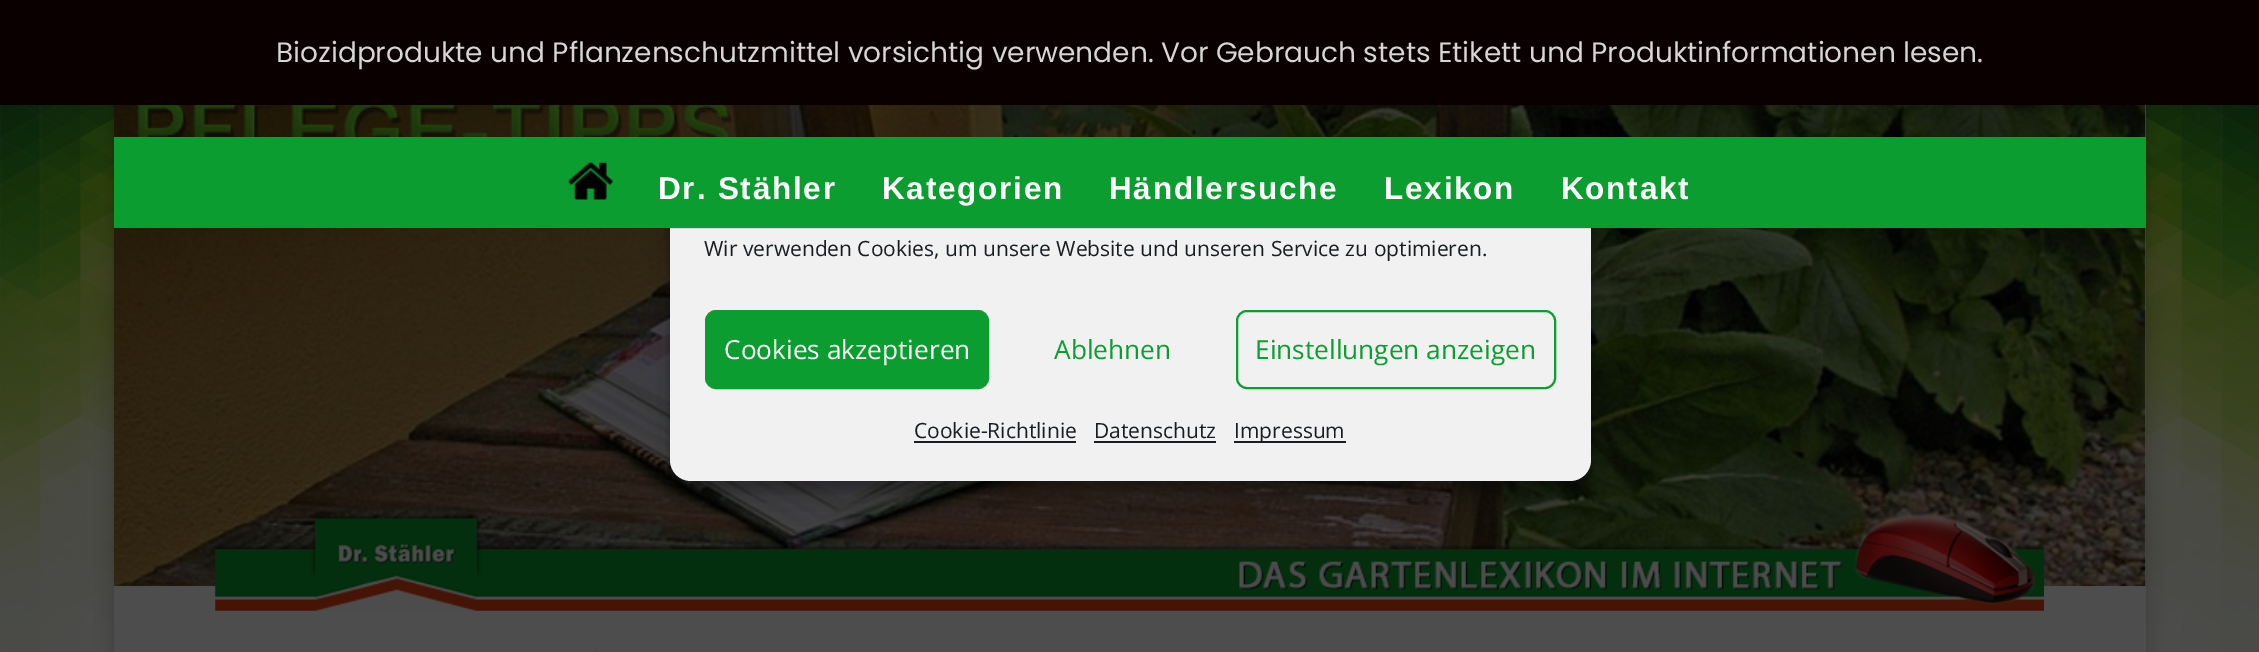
%!PS
<< /PageSize [2259 652] /PageUsesTransparency true >> setpagedevice
/alpha { dup .setfillconstantalpha .setstrokeconstantalpha } def
/roundrect { 5 dict begin { /r /h /w /y /x } { exch def } forall
  x r add y moveto x w add y 2 copy h add r arct x w add y h add x 1 index r arct
  x y h add x y r arct x y 2 copy exch w add exch r arct closepath end } def
/shadow { 12 dict begin { /a /b /q /h /w /y /x } { exch def } forall gsave /was 0 def
  9 -2 -9 { dup b mul 4 div /e exch def 1 sub .425 mul 2.718 exch exp 1 add a .99 .min exch div /now exch def
    1 1 now sub 1 was sub div sub alpha /was now def
    w h .min e 2 mul add 0 gt { x e sub y e sub w e 2 mul add h e 2 mul add
      q e add b .6 mul add w h .min 2 div e add .min 0 .max roundrect fill } if } for grestore end } def
/picture { 5 dict begin { /h /w /y /x /name } { exch def } forall
  gsave x y translate w h scale
  w h 8 [w 0 0 h 0 0] name (r) file false 3 colorimage grestore end } def
0 .pushpdf14devicefilter
0 652 translate 1 -1 scale
4 setmiterlimit
1 setgray
0 0 2259 652 rectfill
(img1.rgb) 0 105 2259 547 picture
0 setgray
114 2 2032 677 0 9 0.2 shadow
0.039 0 0 setrgbcolor
0 0 2259 105 rectfill
/Poppins-Regular [28 0 0 -28 0 0] selectfont
0.839 setgray
276 62 moveto (Biozidprodukte und Pflanzenschutzmittel vorsichtig verwenden. Vor Gebrauch stets Etikett und Produktinformationen lesen.) show
0.302 setgray
114 105 2032 547 rectfill
(img2.rgb) 113 105 2033 481 picture
(img3.rgb) 215 510 1829 101 picture
0.271 setgray
595 651 2 1 rectfill
0 setgray
670 184 921 308 21 5 0.23 shadow
670 191 921 308 21 17.5 0.19 shadow
0.945 setgray
670 173 921 308 21 roundrect fill
0.1 alpha
0 setgray
newpath 114 228 moveto 114 229 lineto 2146 229 lineto 2146 138 lineto 2146 228 lineto closepath fill
1 alpha
0.047 0.616 0.188 setrgbcolor
114 137 2032 91 rectfill
(img4.rgb) 568 162 45 38 picture
/LiberationSans-Bold [31.5 0 0 -31.5 0 0] selectfont
1 setgray
658 199 moveto 1.75 0 (Dr. Stähler) ashow
882 199 moveto 1.75 0 (Kategorien) ashow
1109 199 moveto 1.75 0 (Händlersuche) ashow
1384 199 moveto 1.75 0 (Lexikon) ashow
1561 199 moveto 1.75 0 (Kontakt) ashow
/OpenSans-Regular [21 0 0 -21 0 0] selectfont
0.098 0.118 0.137 setrgbcolor
704 256 moveto (Wir verwenden Cookies, um unsere Website und unseren Service zu optimieren.) show
0.043 0.616 0.188 setrgbcolor
706 311 282 77 10 roundrect gsave fill grestore
2 setlinewidth
stroke
/OpenSans-Regular [26.25 0 0 -26.25 0 0] selectfont
1 setgray
724 359 moveto (Cookies akzeptieren) show
0.043 0.616 0.188 setrgbcolor
1054 359 moveto (Ablehnen) show
1237 311 318 77 10 roundrect stroke
1255 359 moveto (Einstellungen anzeigen) show
/OpenSans-Regular [21 0 0 -21 0 0] selectfont
0.098 0.118 0.137 setrgbcolor
914 438 moveto (Cookie-Richtlinie) show
914 441 162 2 rectfill
1094 438 moveto (Datenschutz) show
1094 441 122 2 rectfill
1234 441 112 2 rectfill
1234 438 moveto (Impressum) show
.poppdf14devicefilter showpage
